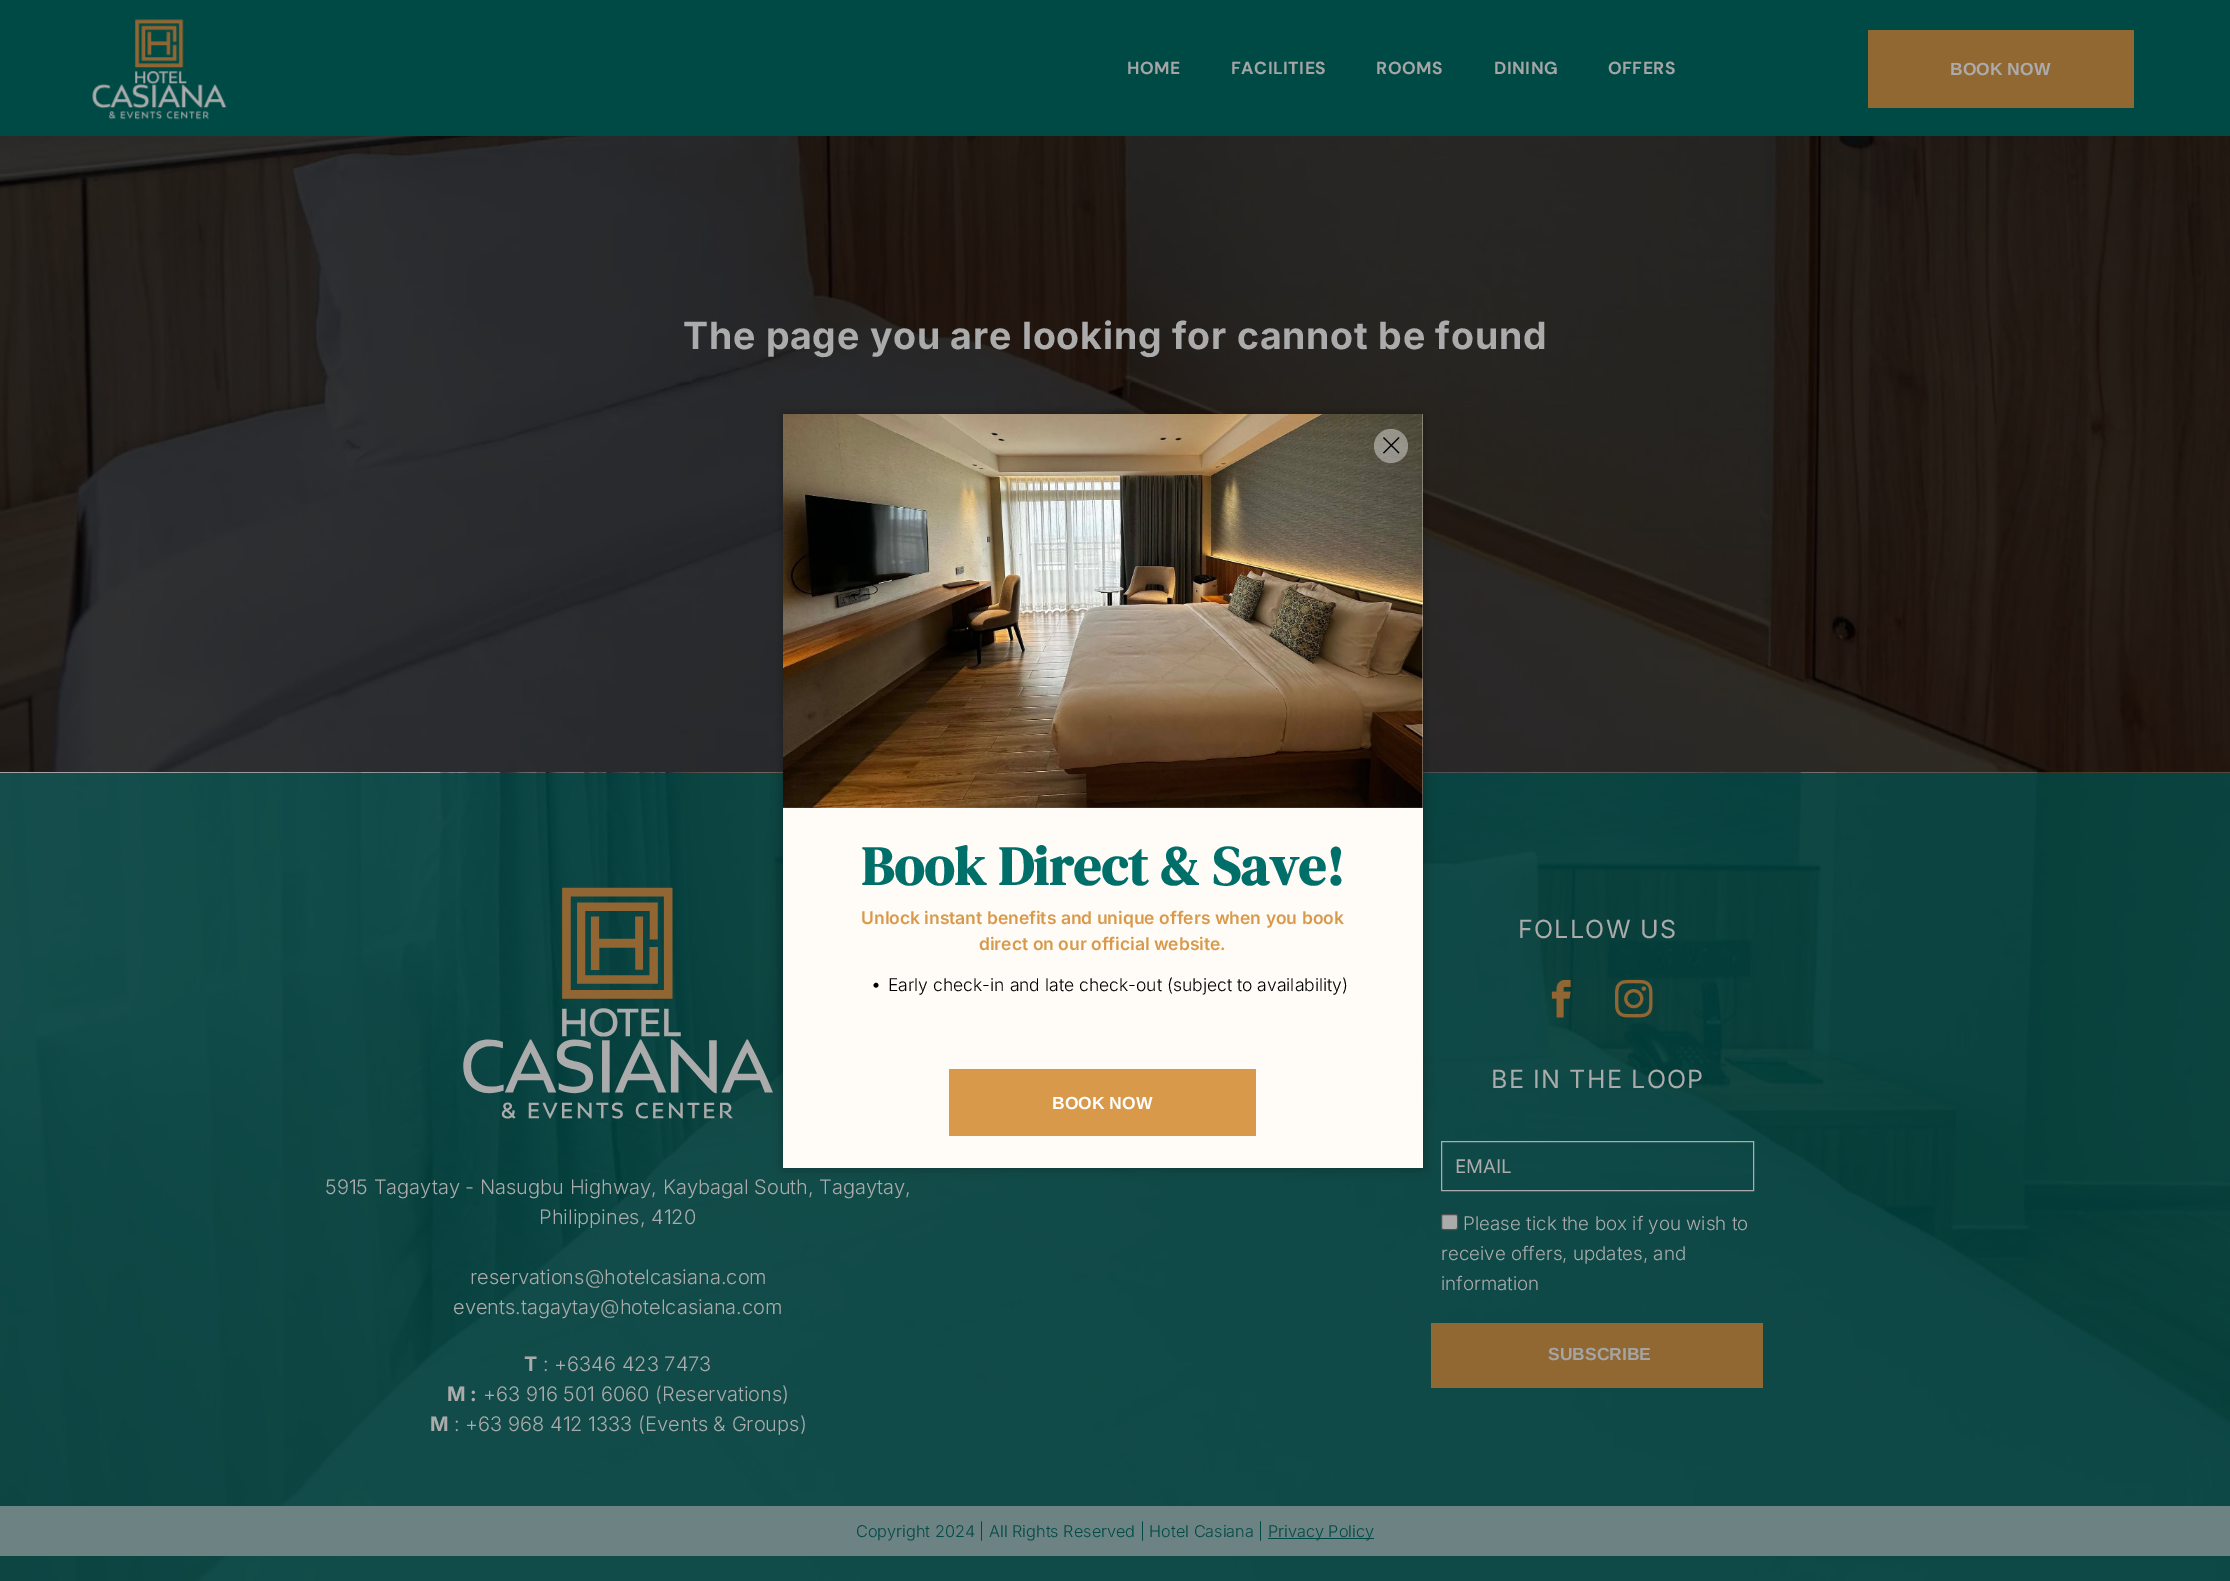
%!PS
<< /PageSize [2230 1581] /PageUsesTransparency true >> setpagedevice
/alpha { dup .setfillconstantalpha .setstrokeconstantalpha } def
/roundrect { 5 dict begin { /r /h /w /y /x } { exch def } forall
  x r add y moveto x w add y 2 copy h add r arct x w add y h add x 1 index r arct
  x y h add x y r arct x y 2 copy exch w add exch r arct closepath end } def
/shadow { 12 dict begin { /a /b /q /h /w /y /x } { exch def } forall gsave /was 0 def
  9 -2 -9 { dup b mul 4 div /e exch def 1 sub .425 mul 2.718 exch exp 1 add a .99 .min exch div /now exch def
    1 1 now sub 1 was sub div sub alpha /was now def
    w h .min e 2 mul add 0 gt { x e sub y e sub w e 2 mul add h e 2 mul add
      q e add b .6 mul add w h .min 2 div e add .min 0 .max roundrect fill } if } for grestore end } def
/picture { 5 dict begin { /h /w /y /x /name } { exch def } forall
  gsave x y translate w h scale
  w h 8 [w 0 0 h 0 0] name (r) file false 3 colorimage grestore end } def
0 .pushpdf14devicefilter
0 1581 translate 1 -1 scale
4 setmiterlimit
1 setgray
0 0 2230 1581 rectfill
0 0.29 0.275 setrgbcolor
0 0 2230 136 rectfill
(img1.rgb) 92 19 135 101 picture
/DMSans-Bold [17.5 0 0 -17.5 0 0] selectfont
0.647 setgray
1127 74 moveto 0.5 0 (HOME) ashow
1231 74 moveto 0.5 0 (FACILITIES) ashow
1376 74 moveto 0.5 0 (ROOMS) ashow
1494 74 moveto 0.5 0 (DINING) ashow
1608 74 moveto 0.5 0 (OFFERS) ashow
0.569 0.404 0.196 setrgbcolor
1868 30 266 78 1 roundrect fill
/LiberationSans-Bold [17.5 0 0 -17.5 0 0] selectfont
0.671 setgray
1950 75 moveto (BOOK NOW) show
(img2.rgb) 0 136 2230 636 picture
/Inter-Bold [37.5 0 0 -37.5 0 0] selectfont
683 349 moveto 0.75 0 (The page you are looking for cannot be found) ashow
(img5.rgb) 0 772 2230 809 picture
(img6.rgb) 463 887 310 232 picture
1441.5 1141.5 312 49 rectstroke
0 setgray
783 414 640 754 0 6 0.3 shadow
1 0.988 0.969 setrgbcolor
783 414 640 754 rectfill
(img4.rgb) 783 414 640 394 picture
0.4 alpha
1 setgray
newpath 1391 446 17 0 360 arc closepath fill
1 alpha
(img3.rgb) 1383 437 17 17 picture
/DMSerifDisplay-Bold [55 0 0 -55 0 0] selectfont
0 0.431 0.412 setrgbcolor
861 885 moveto (Book Direct & Save!) show
/Inter-SemiBold [17.5 0 0 -17.5 0 0] selectfont
0.847 0.6 0.294 setrgbcolor
861 924 moveto (Unlock instant benefits and unique offers when you book) show
979 950 moveto (direct on our official website.) show
/LiberationSans-Bold [17.5 0 0 -17.5 0 0] selectfont
0 setgray
873 991 moveto (•) show
/Inter-Light [17.5 0 0 -17.5 0 0] selectfont
888 991 moveto (Early check-in and late check-out \(subject to availability\)) show
0.847 0.6 0.294 setrgbcolor
949 1069 307 67 1 roundrect fill
/LiberationSans-Bold [17.5 0 0 -17.5 0 0] selectfont
1 setgray
1052 1109 moveto (BOOK NOW) show
/Inter-Light [20 0 0 -20 0 0] selectfont
0.671 setgray
325 1194 moveto (5915 Tagaytay - Nasugbu Highway, Kaybagal South, Tagaytay,) show
539 1224 moveto (Philippines, 4120) show
470 1284 moveto (reservations@hotelcasiana.com) show
453 1314 moveto (events.tagaytay@hotelcasiana.com) show
/Inter-Bold [20 0 0 -20 0 0] selectfont
524 1371 moveto (T) show
/Inter-Light [20 0 0 -20 0 0] selectfont
543 1371 moveto (: +6346 423 7473) show
/Inter-Bold [20 0 0 -20 0 0] selectfont
447 1401 moveto (M :) show
/Inter-Light [20 0 0 -20 0 0] selectfont
483 1401 moveto (+63 916 501 6060 \(Reservations\)) show
/Inter-Bold [20 0 0 -20 0 0] selectfont
430 1431 moveto (M) show
/Inter-Light [20 0 0 -20 0 0] selectfont
454 1431 moveto (: +63 968 412 1333 \(Events & Groups\)) show
/Inter-Regular [25 0 0 -25 0 0] selectfont
1518 938 moveto 1.25 0 (FOLLOW US) ashow
(img7.rgb) 1551 979 20 39 picture
(img8.rgb) 1615 979 38 39 picture
1491 1088 moveto 1.25 0 (BE IN THE LOOP) ashow
/Inter-Regular [18.75 0 0 -18.75 0 0] selectfont
1455 1173 moveto (EMAIL) show
1441.5 1214.5 16 15 2 roundrect gsave fill grestore
0.31 setgray
stroke
/Inter-Light [18.75 0 0 -18.75 0 0] selectfont
0.671 setgray
1463 1230 moveto (Please tick the box if you wish to) show
1441 1260 moveto (receive offers, updates, and) show
1441 1290 moveto (information) show
0.569 0.404 0.196 setrgbcolor
1431 1323 332 65 rectfill
/LiberationSans-Bold [17.5 0 0 -17.5 0 0] selectfont
0.647 setgray
1548 1360 moveto (SUBSCRIBE) show
0.427 0.514 0.514 setrgbcolor
0 1506 2230 50 rectfill
/Inter-Light [16.25 0 0 -16.25 0 0] selectfont
0 0.29 0.275 setrgbcolor
856 1537 moveto (Copyright 2024 | All Rights Reserved | Hotel Casiana |) show
1268 1538 106 1 rectfill
1268 1537 moveto (Privacy Policy) show
.poppdf14devicefilter showpage
